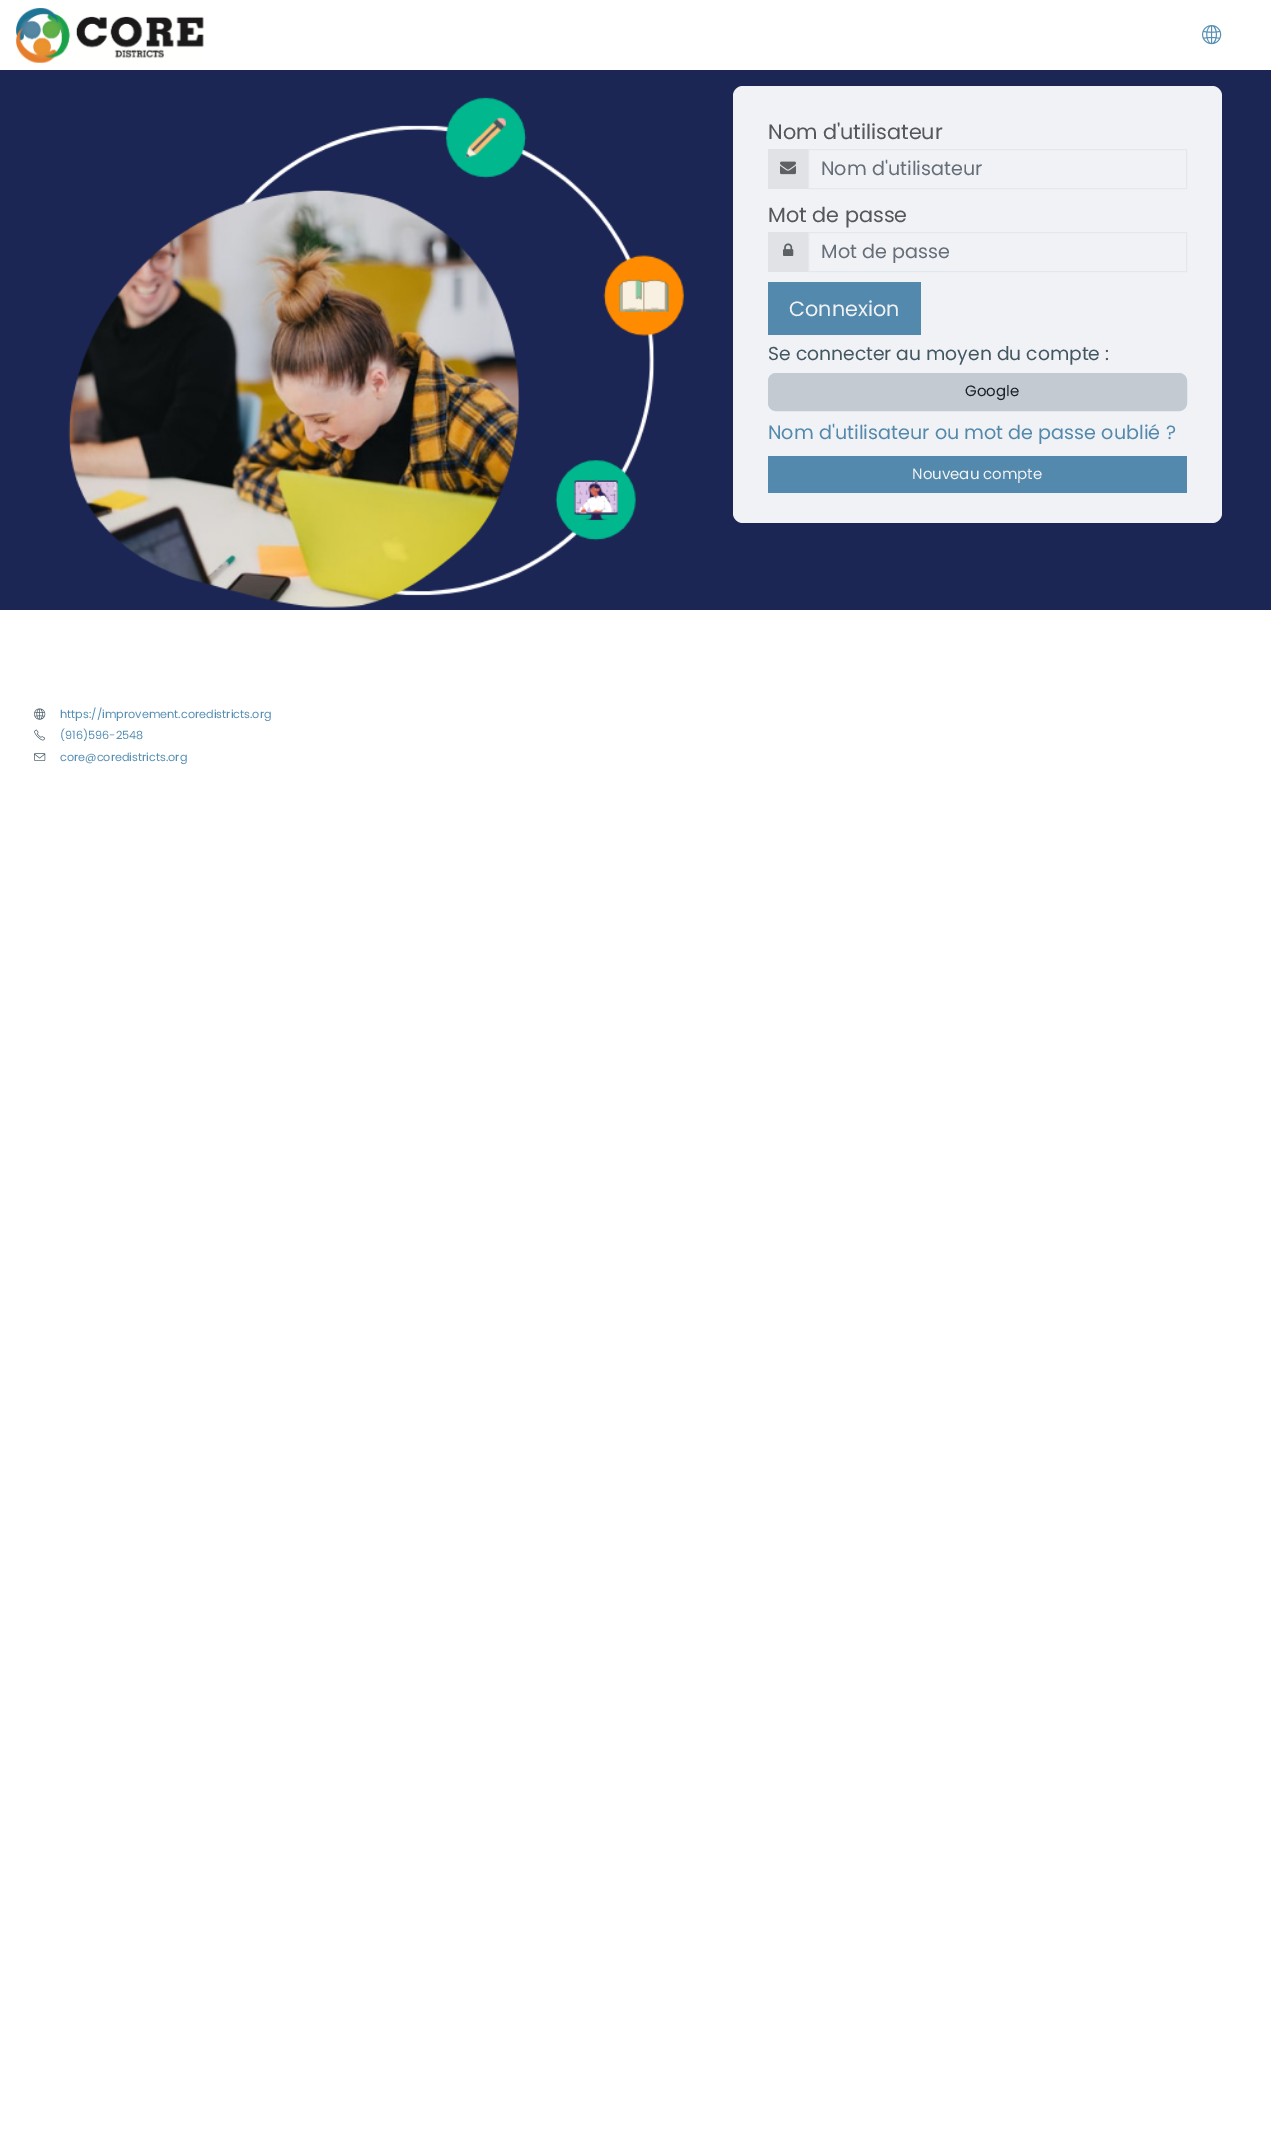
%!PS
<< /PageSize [1271 2133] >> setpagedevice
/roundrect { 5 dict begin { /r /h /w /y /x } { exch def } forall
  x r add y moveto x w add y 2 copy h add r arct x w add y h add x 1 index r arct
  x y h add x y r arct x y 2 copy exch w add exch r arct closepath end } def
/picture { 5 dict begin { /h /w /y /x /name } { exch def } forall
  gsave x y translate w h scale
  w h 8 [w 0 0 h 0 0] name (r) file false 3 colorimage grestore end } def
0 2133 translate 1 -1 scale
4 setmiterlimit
1 setgray
0 0 1271 2133 rectfill
(img1.rgb) 16 8 188 55 picture
(img2.rgb) 1202 25 20 20 picture
(img3.rgb) 0 70 1271 540 picture
0.945 0.949 0.961 setrgbcolor
733 86 489 437 10 roundrect fill
/Poppins-Regular [20.75 0 0 -20.75 0 0] selectfont
0.337 0.341 0.353 setrgbcolor
768 139 moveto (Nom d'utilisateur) show
0.878 0.886 0.902 setrgbcolor
768 149 40 40 rectfill
(img4.rgb) 780 161 16 14 picture
0.89 0.91 0.933 setrgbcolor
808.5 149.5 378 39 rectstroke
/Poppins-Regular [19.2 0 0 -19.2 0 0] selectfont
0.396 0.431 0.475 setrgbcolor
821 175 moveto (Nom d'utilisateur) show
/Poppins-Regular [20.75 0 0 -20.75 0 0] selectfont
0.337 0.341 0.353 setrgbcolor
768 222 moveto (Mot de passe) show
0.878 0.886 0.902 setrgbcolor
768 232 40 40 rectfill
(img5.rgb) 783 243 11 13 picture
0.89 0.91 0.933 setrgbcolor
808.5 232.5 378 39 rectstroke
/Poppins-Regular [19.2 0 0 -19.2 0 0] selectfont
0.396 0.431 0.475 setrgbcolor
821 258 moveto (Mot de passe) show
0.325 0.537 0.678 setrgbcolor
768 282 153 53 rectfill
/Poppins-Regular [20.75 0 0 -20.75 0 0] selectfont
0.945 0.949 0.961 setrgbcolor
789 316 moveto (Connexion) show
/Poppins-Regular [18.75 0 0 -18.75 0 0] selectfont
0.263 0.341 0.388 setrgbcolor
768 360 moveto (Se connecter au moyen du compte :) show
0.765 0.792 0.824 setrgbcolor
768.5 373.5 418 37 7.5 roundrect gsave fill grestore
stroke
/Poppins-Regular [15 0 0 -15 0 0] selectfont
0.114 0.129 0.157 setrgbcolor
965 396 moveto (Google) show
/Poppins-Regular [19.2 0 0 -19.2 0 0] selectfont
0.325 0.537 0.678 setrgbcolor
768 439 moveto (Nom d'utilisateur ou mot de passe oublié ?) show
768 456 419 37 rectfill
/Poppins-Regular [15 0 0 -15 0 0] selectfont
0.945 0.949 0.961 setrgbcolor
912 479 moveto (Nouveau compte) show
(img6.rgb) 34 708 12 12 picture
/Poppins-Regular [11.25 0 0 -11.25 0 0] selectfont
0.337 0.561 0.702 setrgbcolor
60 718 moveto (https://improvement.coredistricts.org) show
(img7.rgb) 34 729 12 12 picture
60 739 moveto (\(916\)596-2548) show
(img8.rgb) 34 753 12 8 picture
60 761 moveto (core@coredistricts.org) show
showpage
